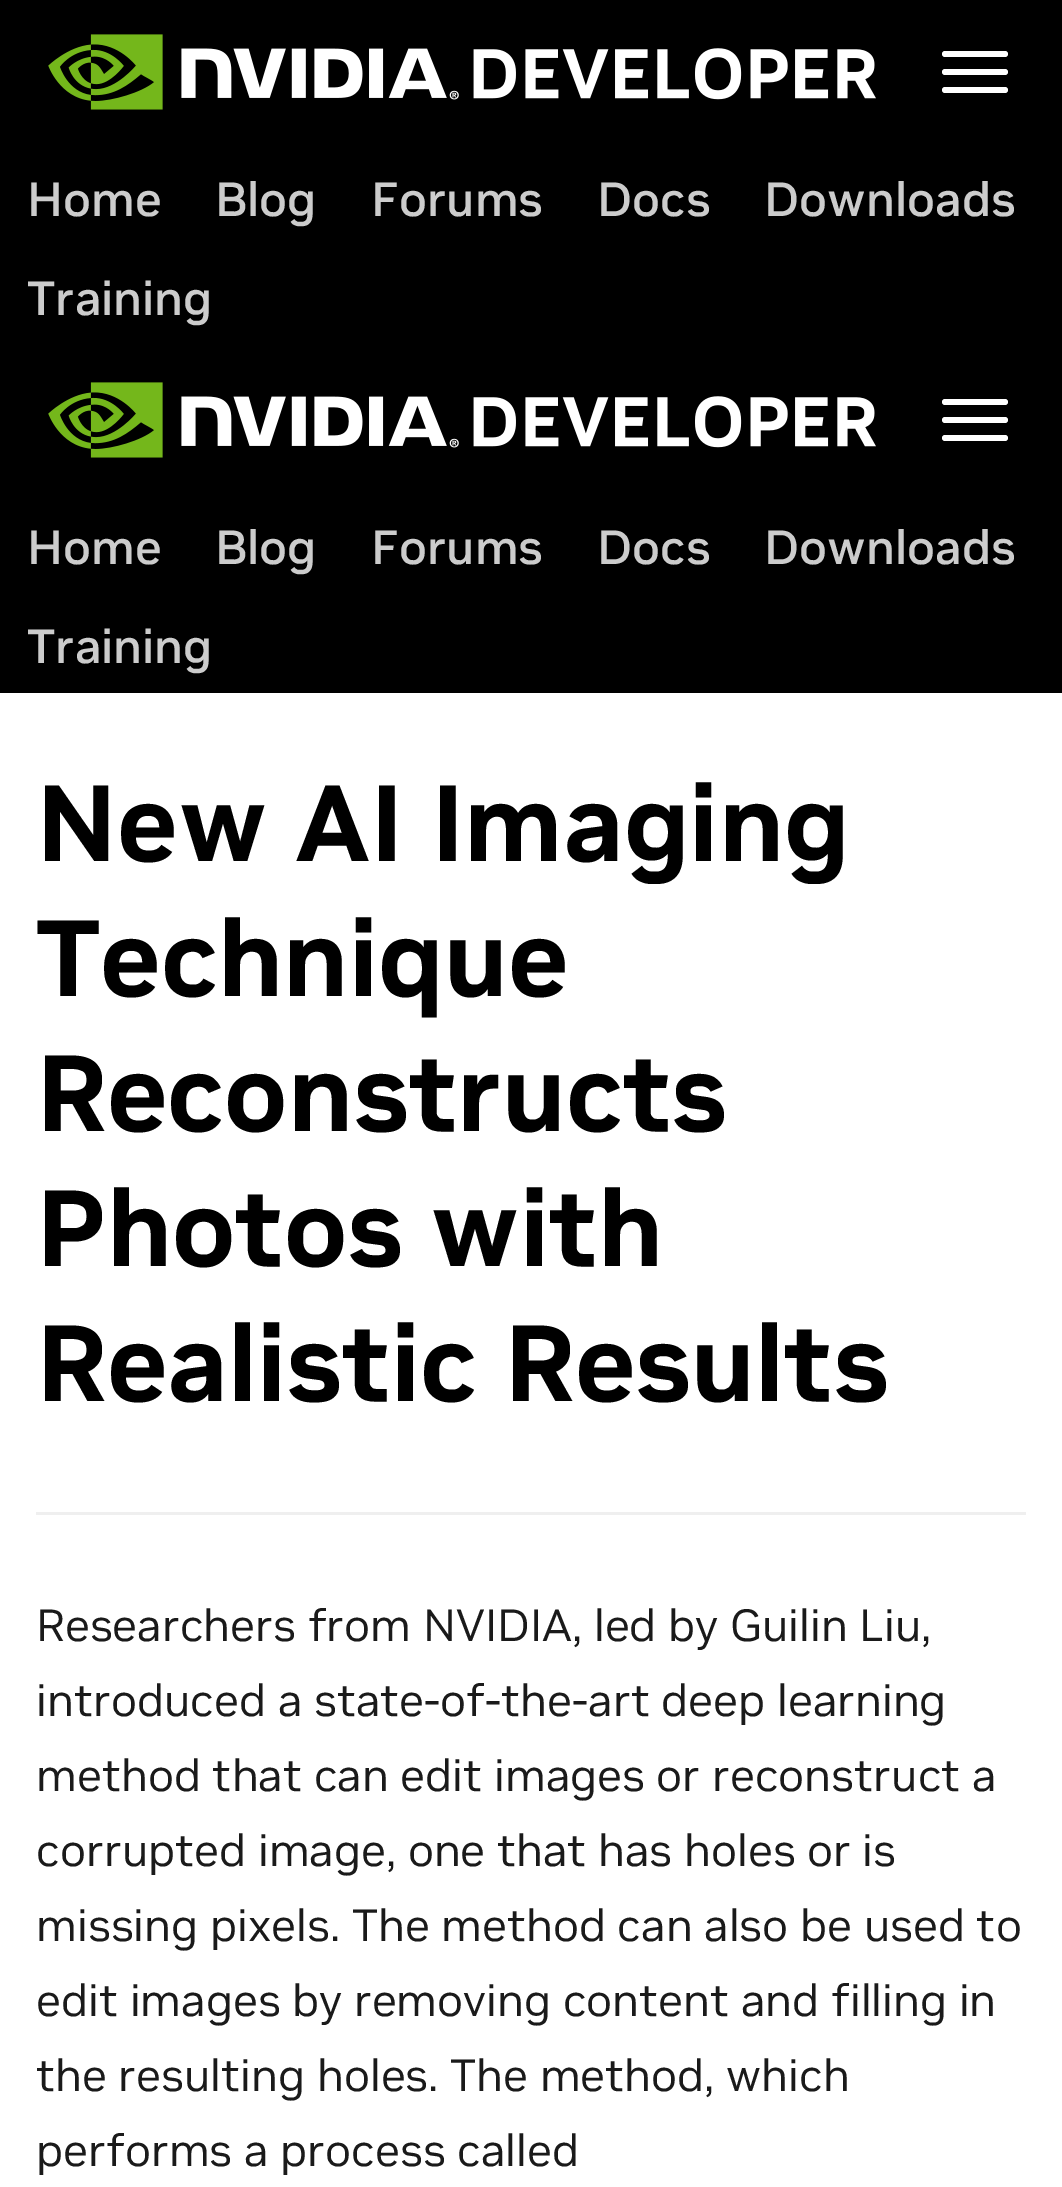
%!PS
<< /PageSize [1062 2187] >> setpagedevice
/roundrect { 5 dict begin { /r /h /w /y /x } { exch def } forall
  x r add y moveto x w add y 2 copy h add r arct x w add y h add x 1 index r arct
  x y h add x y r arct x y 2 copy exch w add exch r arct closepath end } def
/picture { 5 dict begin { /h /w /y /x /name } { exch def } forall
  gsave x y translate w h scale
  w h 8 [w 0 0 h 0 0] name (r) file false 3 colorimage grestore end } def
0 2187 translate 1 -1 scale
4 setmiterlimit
1 setgray
0 0 1062 2187 rectfill
0 setgray
0 0 1062 693 rectfill
1 setgray
942 51 66 6 3 roundrect fill
942 69 66 6 3 roundrect fill
942 87 66 6 3 roundrect fill
(img1.rgb) 48 34 828 76 picture
/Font-Medium [48 0 0 -48 0 0] selectfont
0.8 setgray
27 216 moveto (Home) show
215 216 moveto (Blog) show
371 216 moveto (Forums) show
597 216 moveto (Docs) show
764 216 moveto (Downloads) show
27 315 moveto (Training) show
1 setgray
942 399 66 6 3 roundrect fill
942 417 66 6 3 roundrect fill
942 435 66 6 3 roundrect fill
(img1.rgb) 48 382 828 76 picture
0.8 setgray
27 564 moveto (Home) show
215 564 moveto (Blog) show
371 564 moveto (Forums) show
597 564 moveto (Docs) show
764 564 moveto (Downloads) show
27 663 moveto (Training) show
0.937 setgray
36 1512 990 3 rectfill
/Font-Bold [108 0 0 -108 0 0] selectfont
0 setgray
36 861 moveto (New AI Imaging) show
36 996 moveto (Technique) show
36 1131 moveto (Reconstructs) show
36 1266 moveto (Photos with) show
36 1401 moveto (Realistic Results) show
/Font-Regular [45 0 0 -45 0 0] selectfont
0.102 setgray
36 1641 moveto (Researchers from NVIDIA, led by Guilin Liu,) show
36 1716 moveto (introduced a state-of-the-art deep learning) show
36 1791 moveto (method that can edit images or reconstruct a) show
36 1866 moveto (corrupted image, one that has holes or is) show
36 1941 moveto (missing pixels. The method can also be used to) show
36 2016 moveto (edit images by removing content and filling in) show
36 2091 moveto (the resulting holes. The method, which) show
36 2166 moveto (performs a process called) show
showpage
